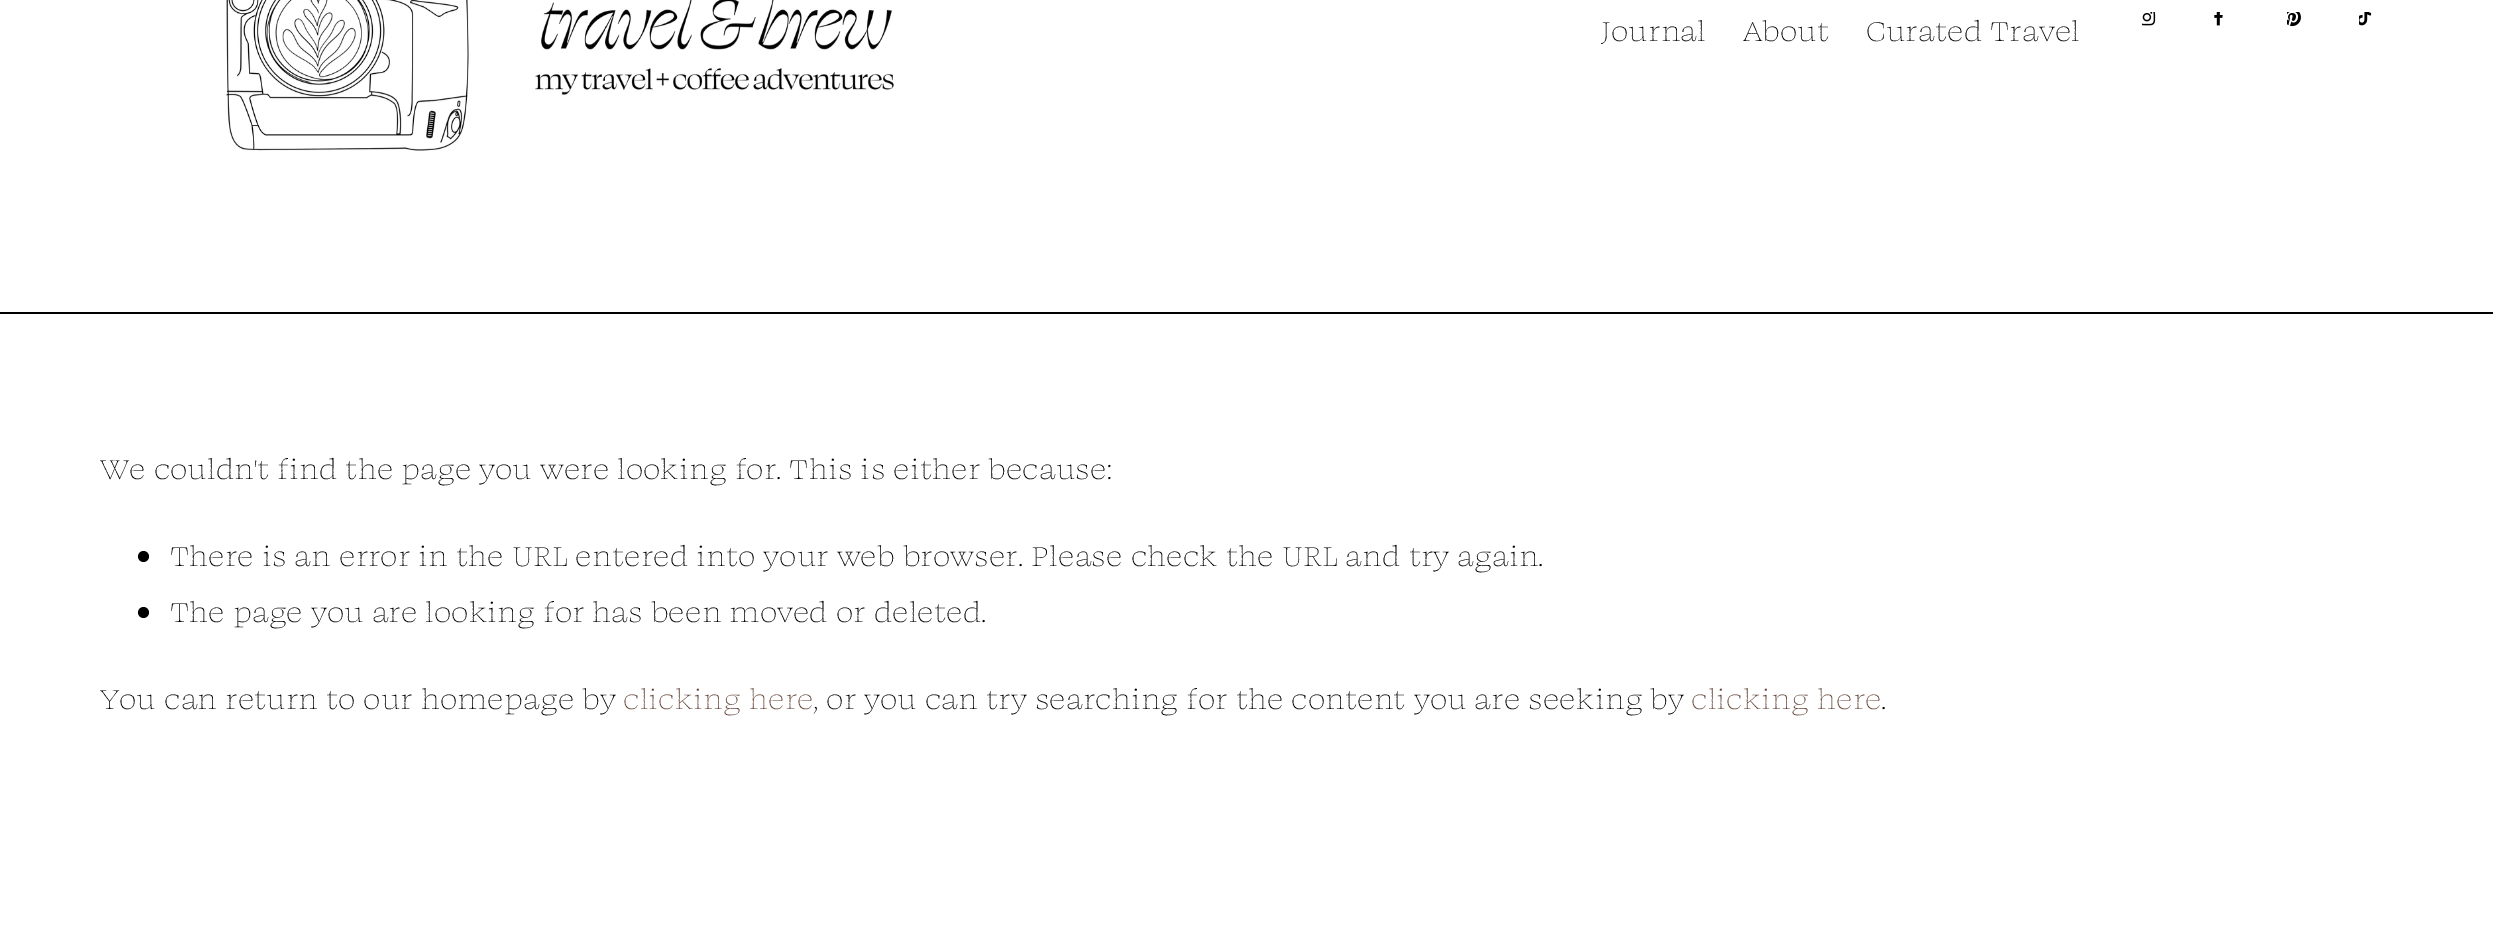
%!PS
<< /PageSize [2493 947] >> setpagedevice
/picture { 5 dict begin { /h /w /y /x /name } { exch def } forall
  gsave x y translate w h scale
  w h 8 [w 0 0 h 0 0] name (r) file false 3 colorimage grestore end } def
0 947 translate 1 -1 scale
4 setmiterlimit
1 setgray
0 0 2493 947 rectfill
(img1.rgb) 226 0 668 151 picture
/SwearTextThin-Thin [31 0 0 -31 0 0] selectfont
0 setgray
1601 41 moveto (Journal) show
1743 41 moveto (About) show
1866 41 moveto (Curated Travel) show
(img2.rgb) 2142 12 14 14 picture
(img3.rgb) 2214 12 9 14 picture
(img4.rgb) 2287 12 14 15 picture
(img5.rgb) 2359 12 13 14 picture
0 312 2493 2 rectfill
100 479 moveto (We couldn't find the page you were looking for. This is either because:) show
newpath 143.5 556.5 5.5 0 360 arc closepath fill
170 566 moveto (There is an error in the URL entered into your web browser. Please check the URL and try again.) show
newpath 143.5 612.5 5.5 0 360 arc closepath fill
170 622 moveto (The page you are looking for has been moved or deleted.) show
100 709 moveto (You can return to our homepage by) show
0.396 0.278 0.227 setrgbcolor
623 709 moveto (clicking here) show
0 setgray
813 709 moveto (, or you can try searching for the content you are seeking by) show
0.396 0.278 0.227 setrgbcolor
1691 709 moveto (clicking here) show
0 setgray
1881 709 moveto (.) show
showpage
